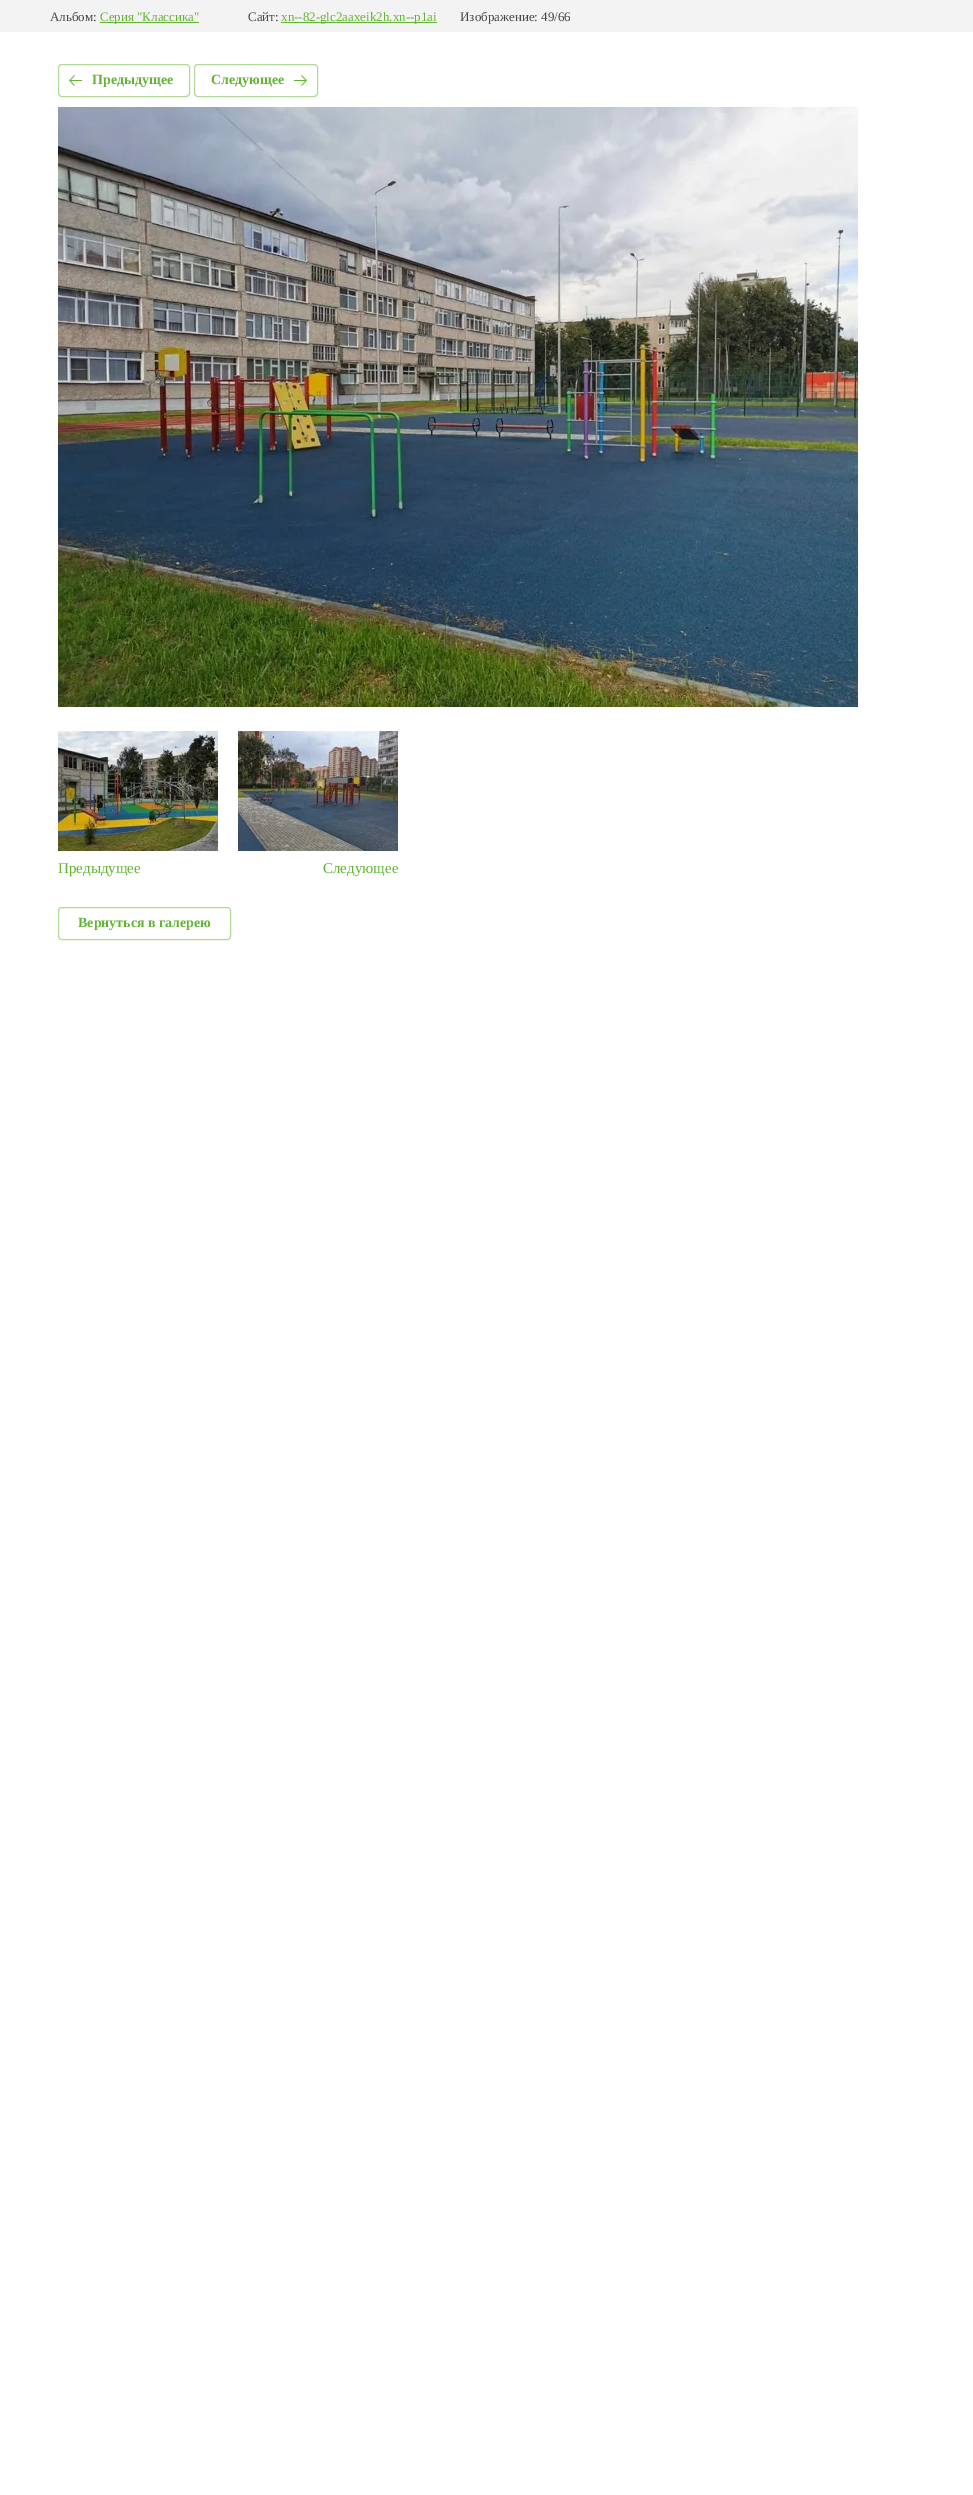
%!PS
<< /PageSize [973 2495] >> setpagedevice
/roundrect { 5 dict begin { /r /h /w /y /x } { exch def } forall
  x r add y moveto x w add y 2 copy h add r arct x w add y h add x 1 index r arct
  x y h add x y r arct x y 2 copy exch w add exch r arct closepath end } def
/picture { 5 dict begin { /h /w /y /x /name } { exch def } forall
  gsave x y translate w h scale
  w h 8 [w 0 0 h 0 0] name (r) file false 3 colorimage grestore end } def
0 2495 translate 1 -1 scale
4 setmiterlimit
1 setgray
0 0 973 2495 rectfill
0.953 setgray
0 0 973 32 rectfill
/LiberationSerif-Regular [13 0 0 -13 0 0] selectfont
0.282 setgray
50 21 moveto (Альбом:) show
0.388 0.706 0.208 setrgbcolor
100 22 99 1 rectfill
100 21 moveto (Серия "Классика") show
0.282 setgray
248 21 moveto (Сайт:) show
0.388 0.706 0.208 setrgbcolor
281 22 156 1 rectfill
281 21 moveto (xn--82-glc2aaxeik2h.xn--p1ai) show
0.282 setgray
460 21 moveto (Изображение: 49/66) show
0.694 0.855 0.604 setrgbcolor
58.5 64.5 131 32 3.5 roundrect stroke
(img1.rgb) 69 75 13 11 picture
/LiberationSerif-Bold [14 0 0 -14 0 0] selectfont
0.388 0.706 0.208 setrgbcolor
92 84 moveto (Предыдущее) show
0.694 0.855 0.604 setrgbcolor
194.5 64.5 123 32 3.5 roundrect stroke
0.388 0.706 0.208 setrgbcolor
211 84 moveto (Следующее) show
(img2.rgb) 294 75 13 11 picture
(img3.rgb) 58 107 800 600 picture
(img4.rgb) 58 731 160 120 picture
/LiberationSerif-Regular [15 0 0 -15 0 0] selectfont
58 873 moveto (Предыдущее) show
(img5.rgb) 238 731 160 120 picture
323 873 moveto (Следующее) show
0.694 0.855 0.604 setrgbcolor
58.5 907.5 172 32 3.5 roundrect stroke
/LiberationSerif-Bold [14 0 0 -14 0 0] selectfont
0.388 0.706 0.208 setrgbcolor
78 927 moveto (Вернуться в галерею) show
showpage
